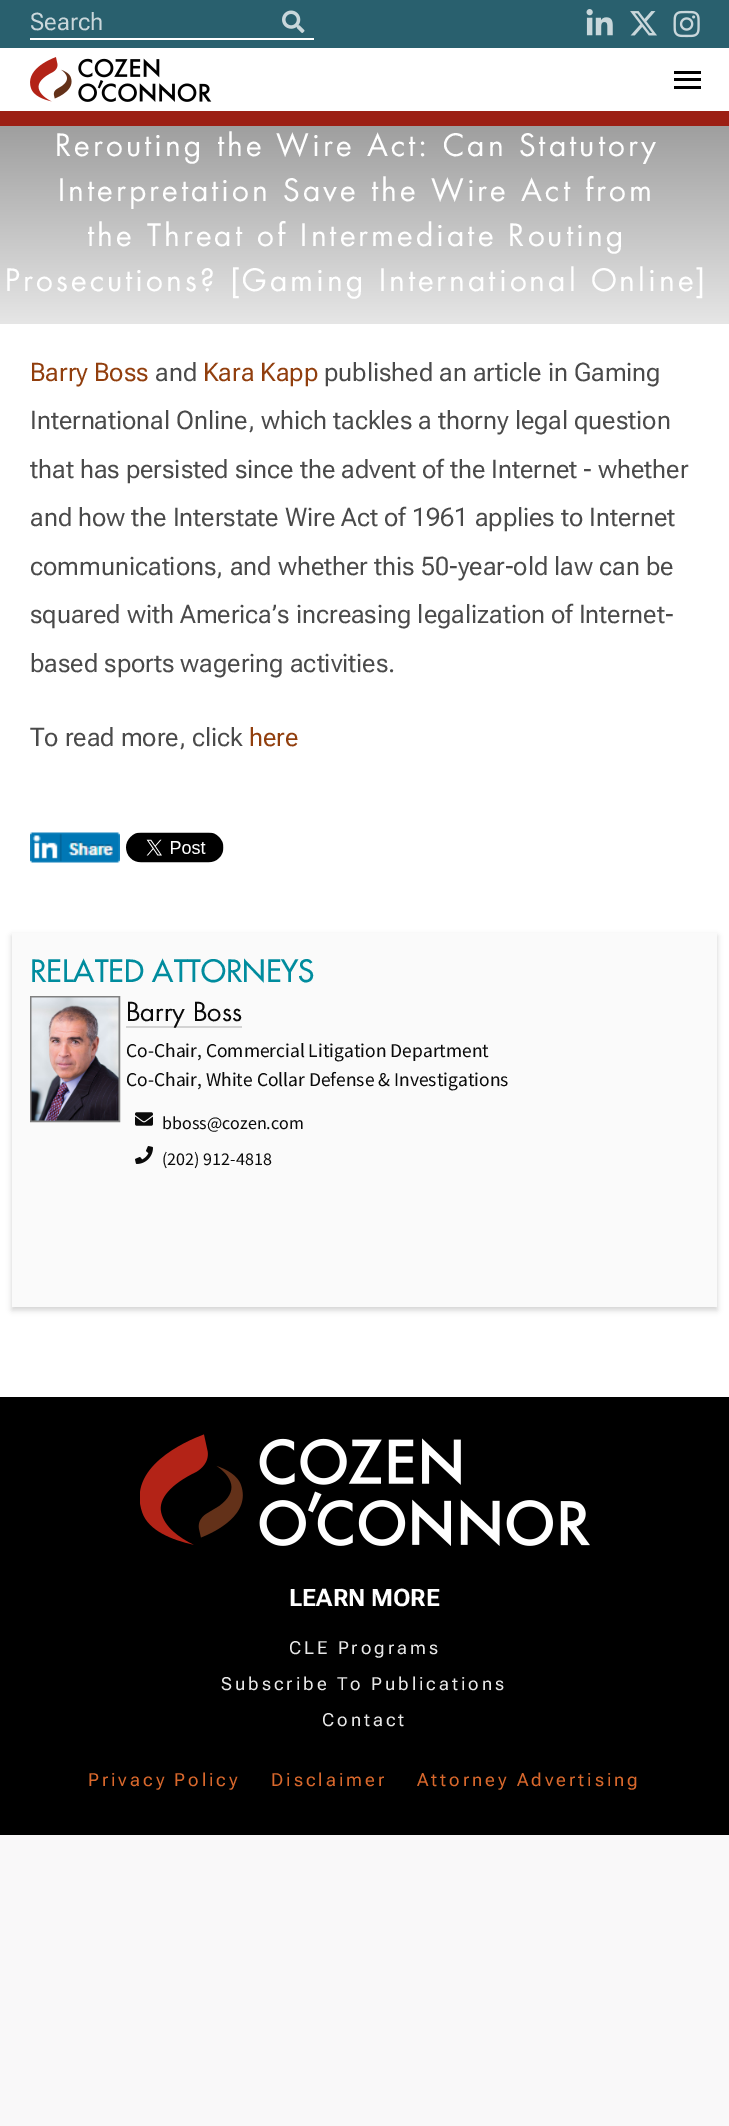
%!PS
<< /PageSize [729 2126] /PageUsesTransparency true >> setpagedevice
/alpha { dup .setfillconstantalpha .setstrokeconstantalpha } def
/roundrect { 5 dict begin { /r /h /w /y /x } { exch def } forall
  x r add y moveto x w add y 2 copy h add r arct x w add y h add x 1 index r arct
  x y h add x y r arct x y 2 copy exch w add exch r arct closepath end } def
/shadow { 12 dict begin { /a /b /q /h /w /y /x } { exch def } forall gsave /was 0 def
  9 -2 -9 { dup b mul 4 div /e exch def 1 sub .425 mul 2.718 exch exp 1 add a .99 .min exch div /now exch def
    1 1 now sub 1 was sub div sub alpha /was now def
    w h .min e 2 mul add 0 gt { x e sub y e sub w e 2 mul add h e 2 mul add
      q e add b .6 mul add w h .min 2 div e add .min 0 .max roundrect fill } if } for grestore end } def
/picture { 5 dict begin { /h /w /y /x /name } { exch def } forall
  gsave x y translate w h scale
  w h 8 [w 0 0 h 0 0] name (r) file false 3 colorimage grestore end } def
0 .pushpdf14devicefilter
0 2126 translate 1 -1 scale
4 setmiterlimit
0.976 0.973 0.976 setrgbcolor
0 0 729 2126 rectfill
1 setgray
0 324 729 1073 rectfill
0 48 729 63 rectfill
0.612 0.122 0.078 setrgbcolor
0 111 729 15 rectfill
0.161 0.376 0.431 setrgbcolor
0 0 729 48 rectfill
1 setgray
30 38 284 2 rectfill
/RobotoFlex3-Regular [24 0 0 -24 0 0] selectfont
0.792 0.843 0.859 setrgbcolor
30 30 moveto (Search) show
(img1.rgb) 282 10 23 23 picture
(img2.rgb) 586 9 27 27 picture
(img3.rgb) 630 11 27 25 picture
(img4.rgb) 673 10 27 28 picture
(img5.rgb) 30 57 182 45 picture
0 setgray
674 71 27 3 rectfill
674 78 27 3 rectfill
674 86 27 3 rectfill
gsave newpath 0 126 moveto 729 126 lineto 729 324 lineto 0 324 lineto closepath clip newpath
<< /ShadingType 2 /ColorSpace /DeviceRGB /Coords [365 324 365 108] /Extend [true true] /Function << /FunctionType 2 /Domain [0 1] /C0 [0.902 0.902 0.902] /C1 [0.6 0.6 0.6] /N 1 >> >> shfill grestore
/Futura-Regular [30 0 0 -30 0 0] selectfont
1 setgray
55 156 moveto 3 0 (Rerouting the Wire Act: Can Statutory) ashow
58 201 moveto 3 0 (Interpretation Save the Wire Act from) ashow
87 246 moveto 3 0 (the Threat of Intermediate Routing) ashow
5 291 moveto 3 0 (Prosecutions? [Gaming International Online]) ashow
/RobotoFlex-Regular [25.5 0 0 -25.5 0 0] selectfont
0.569 0.243 0.051 setrgbcolor
30 381 moveto (Barry Boss) show
0.29 setgray
155 381 moveto (and) show
0.569 0.243 0.051 setrgbcolor
203 381 moveto (Kara Kapp) show
0.29 setgray
324 381 moveto (published an article in Gaming) show
30 429 moveto (International Online, which tackles a thorny legal question) show
30 478 moveto (that has persisted since the advent of the Internet - whether) show
30 526 moveto (and how the Interstate Wire Act of 1961 applies to Internet) show
30 575 moveto (communications, and whether this 50-year-old law can be) show
30 623 moveto (squared with America’s increasing legalization of Internet-) show
30 672 moveto (based sports wagering activities.) show
30 746 moveto (To read more, click) show
0.569 0.243 0.051 setrgbcolor
249 746 moveto (here) show
(img6.rgb) 30 832 90 31 picture
(img7.rgb) 126 832 98 31 picture
0 setgray
12 936 705 374 0 3 0.18 shadow
0.98 setgray
12 933 705 374 rectfill
/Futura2-Regular [30 0 0 -30 0 0] selectfont
0 0.549 0.62 setrgbcolor
30 982 moveto (RELATED ATTORNEYS) show
0.502 setgray
2 setlinewidth
31 997 88 124 rectstroke
(img8.rgb) 31 997 88 124 picture
0.827 setgray
126 1026 116 2 rectfill
/Futura-Regular [25.5 0 0 -25.5 0 0] selectfont
0.039 setgray
126 1021 moveto (Barry Boss) show
/SourceSansPro-Regular [19.5 0 0 -19.5 0 0] selectfont
126 1057 moveto (Co-Chair, Commercial Litigation Department) show
126 1086 moveto (Co-Chair, White Collar Defense & Investigations) show
(img9.rgb) 135 1112 18 14 picture
/SourceSansPro-Regular [18 0 0 -18 0 0] selectfont
162 1129 moveto (bboss@cozen.com) show
(img10.rgb) 135 1146 18 18 picture
162 1165 moveto (\(202\) 912-4818) show
0 setgray
0 1397 729 438 rectfill
(img11.rgb) 140 1434 450 112 picture
/RobotoFlex-Bold [24 0 0 -24 0 0] selectfont
1 setgray
289 1606 moveto (LEARN MORE) show
/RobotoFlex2-Regular [18 0 0 -18 0 0] selectfont
0.91 setgray
289 1654 moveto 3 0 (CLE Programs) ashow
221 1690 moveto 3 0 (Subscribe To Publications) ashow
322 1726 moveto 3 0 (Contact) ashow
0.851 0.408 0.173 setrgbcolor
88 1786 moveto 3 0 (Privacy Policy) ashow
271 1786 moveto 3 0 (Disclaimer) ashow
417 1786 moveto 3 0 (Attorney Advertising) ashow
.poppdf14devicefilter showpage
